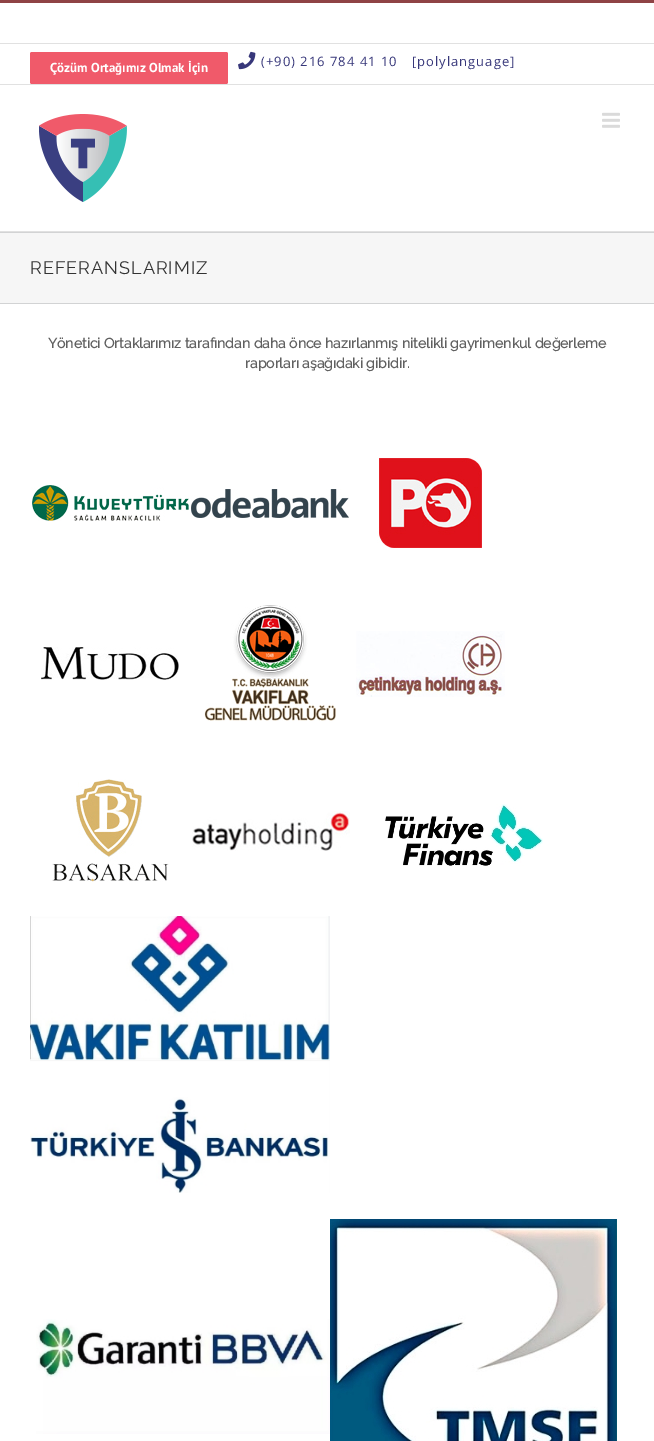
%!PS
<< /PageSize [654 1441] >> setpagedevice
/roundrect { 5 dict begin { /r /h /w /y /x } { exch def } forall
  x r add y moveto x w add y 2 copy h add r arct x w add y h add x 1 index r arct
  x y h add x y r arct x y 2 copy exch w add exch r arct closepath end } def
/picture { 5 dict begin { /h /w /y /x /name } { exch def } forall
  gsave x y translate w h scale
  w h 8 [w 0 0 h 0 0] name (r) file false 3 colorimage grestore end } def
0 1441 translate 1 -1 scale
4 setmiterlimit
1 setgray
0 0 654 1441 rectfill
0.561 0.263 0.271 setrgbcolor
0 0 654 3 rectfill
0.882 setgray
0 84 654 1 rectfill
0 43 654 1 rectfill
0.941 0.353 0.416 setrgbcolor
30 52 198 32 2 roundrect fill
/PTSans-Bold [13 0 0 -13 0 0] selectfont
1 setgray
50 72 moveto (Çözüm Ortağımız Olmak İçin) show
(img1.rgb) 238 51 18 19 picture
/OpenSans-Regular [13 0 0 -13 0 0] selectfont
0.216 0.216 0.478 setrgbcolor
261 66 moveto 1 0 (\(+90\) 216 784 41 10) ashow
412 66 moveto 1 0 ([polylanguage]) ashow
0.882 setgray
0 231 654 1 rectfill
(img2.rgb) 39 114 88 88 picture
(img3.rgb) 602 112 18 16 picture
0.965 setgray
0 233 654 70 rectfill
0.824 0.827 0.831 setrgbcolor
0 232 654 1 rectfill
0 303 654 1 rectfill
/Raleway-Thin [18 0 0 -18 0 0] selectfont
0.2 setgray
30 274 moveto 1 0 (REFERANSLARIMIZ) ashow
/Raleway-Bold [14 0 0 -14 0 0] selectfont
0.376 setgray
48 348 moveto (Yönetici Ortaklarımız tarafından daha önce hazırlanmış nitelikli gayrimenkul değerleme) show
245 368 moveto (raporları aşağıdaki gibidir.) show
(img4.rgb) 31 485 158 36 picture
(img5.rgb) 191 489 158 29 picture
(img6.rgb) 377 457 105 93 picture
(img7.rgb) 41 647 138 33 picture
(img8.rgb) 204 605 132 116 picture
(img9.rgb) 356 631 149 66 picture
(img10.rgb) 52 779 117 103 picture
(img11.rgb) 192 811 158 40 picture
(img12.rgb) 385 804 158 62 picture
(img13.rgb) 30 916 300 144 picture
(img14.rgb) 30 1060 300 133 picture
(img15.rgb) 36 1319 294 115 picture
(img16.rgb) 330 1219 287 222 picture
showpage
